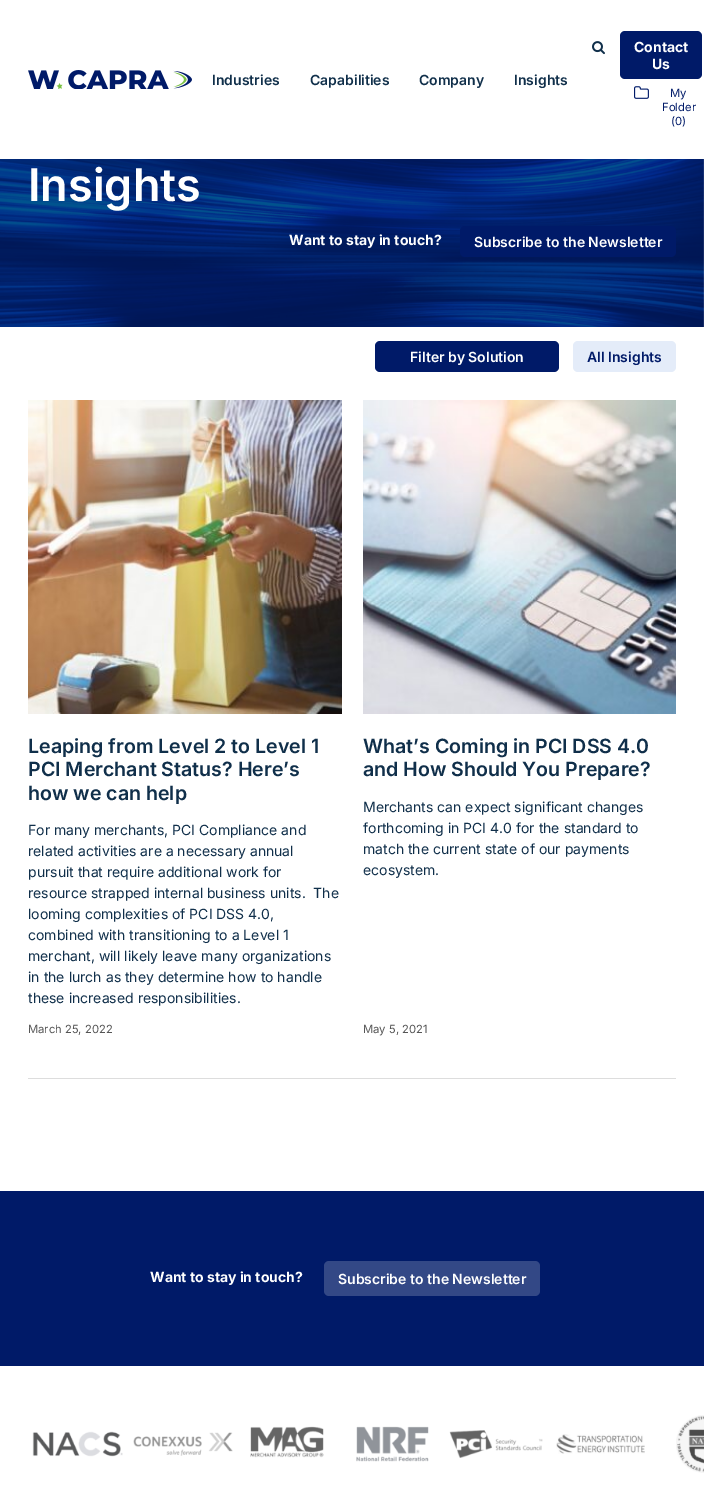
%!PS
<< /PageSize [704 1489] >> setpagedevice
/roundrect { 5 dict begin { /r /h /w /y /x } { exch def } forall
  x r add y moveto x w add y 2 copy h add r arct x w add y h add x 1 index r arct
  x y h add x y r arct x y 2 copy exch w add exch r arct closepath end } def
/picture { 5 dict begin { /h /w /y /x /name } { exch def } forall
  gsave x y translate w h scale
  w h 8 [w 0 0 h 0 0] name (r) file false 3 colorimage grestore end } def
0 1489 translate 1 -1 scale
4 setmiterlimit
1 setgray
0 0 704 1489 rectfill
(img1.rgb) 28 70 164 19 picture
(img2.rgb) 592 41 13 14 picture
/Inter-SemiBold [14 0 0 -14 0 0] selectfont
0.063 0.184 0.29 setrgbcolor
212 85 moveto (Industries) show
310 85 moveto (Capabilities) show
419 85 moveto (Company) show
514 85 moveto (Insights) show
0 0.102 0.408 setrgbcolor
620 31 82 48 5 roundrect fill
/Inter-Bold [14 0 0 -14 0 0] selectfont
1 setgray
634 52 moveto (Contact) show
652 69 moveto (Us) show
(img3.rgb) 634 86 15 13 picture
/Inter-Regular [11.25 0 0 -11.25 0 0] selectfont
0 0.102 0.408 setrgbcolor
670 97 moveto (My) show
662 111 moveto (Folder) show
671 125 moveto (\(0\)) show
(img4.rgb) 0 159 704 168 picture
/Inter-SemiBold [45 0 0 -45 0 0] selectfont
1 setgray
28 201 moveto (Insights) show
/Inter-Bold [14 0 0 -14 0 0] selectfont
289 245 moveto (Want to stay in touch?) show
0 0.102 0.408 setrgbcolor
460 226 216 31 5 roundrect fill
/Inter-SemiBold [14 0 0 -14 0 0] selectfont
1 setgray
474 247 moveto (Subscribe to the Newsletter) show
0 0.102 0.408 setrgbcolor
375 341 184 31 5 roundrect fill
1 setgray
410 362 moveto (Filter by Solution) show
0.894 0.925 0.976 setrgbcolor
573 341 103 31 5 roundrect fill
0 0.102 0.408 setrgbcolor
587 362 moveto (All Insights) show
(img5.rgb) 28 400 314 314 picture
/Inter-SemiBold [19.6 0 0 -19.6 0 0] selectfont
0.063 0.184 0.29 setrgbcolor
28 753 moveto (Leaping from Level 2 to Level 1) show
28 776 moveto (PCI Merchant Status? Here’s) show
28 800 moveto (how we can help) show
/Inter-Regular [14 0 0 -14 0 0] selectfont
28 835 moveto (For many merchants, PCI Compliance and) show
28 856 moveto (related activities are a necessary annual) show
28 877 moveto (pursuit that require additional work for) show
28 898 moveto (resource strapped internal business units.  The) show
28 919 moveto (looming complexities of PCI DSS 4.0,) show
28 940 moveto (combined with transitioning to a Level 1) show
28 961 moveto (merchant, will likely leave many organizations) show
28 982 moveto (in the lurch as they determine how to handle) show
28 1003 moveto (these increased responsibilities.) show
/Inter-Regular [11.25 0 0 -11.25 0 0] selectfont
0.333 setgray
28 1033 moveto (March 25, 2022) show
(img6.rgb) 363 400 313 314 picture
/Inter-SemiBold [19.6 0 0 -19.6 0 0] selectfont
0.063 0.184 0.29 setrgbcolor
363 753 moveto (What’s Coming in PCI DSS 4.0) show
363 776 moveto (and How Should You Prepare?) show
/Inter-Regular [14 0 0 -14 0 0] selectfont
363 812 moveto (Merchants can expect significant changes) show
363 833 moveto (forthcoming in PCI 4.0 for the standard to) show
363 854 moveto (match the current state of our payments) show
363 875 moveto (ecosystem.) show
/Inter-Regular [11.25 0 0 -11.25 0 0] selectfont
0.333 setgray
363 1033 moveto (May 5, 2021) show
0.867 setgray
28 1078 648 1 rectfill
0 0.102 0.408 setrgbcolor
0 1191 704 175 rectfill
/Inter-Bold [14 0 0 -14 0 0] selectfont
1 setgray
150 1282 moveto (Want to stay in touch?) show
0.2 0.282 0.525 setrgbcolor
324 1261 216 35 5 roundrect fill
/Inter-SemiBold [14 0 0 -14 0 0] selectfont
1 setgray
338 1284 moveto (Subscribe to the Newsletter) show
(img7.rgb) 32 1431 91 26 picture
(img8.rgb) 133 1432 100 24 picture
(img9.rgb) 250 1426 74 32 picture
(img10.rgb) 356 1426 73 36 picture
(img11.rgb) 449 1430 94 28 picture
(img12.rgb) 556 1434 89 20 picture
(img13.rgb) 676 1415 28 58 picture
showpage
